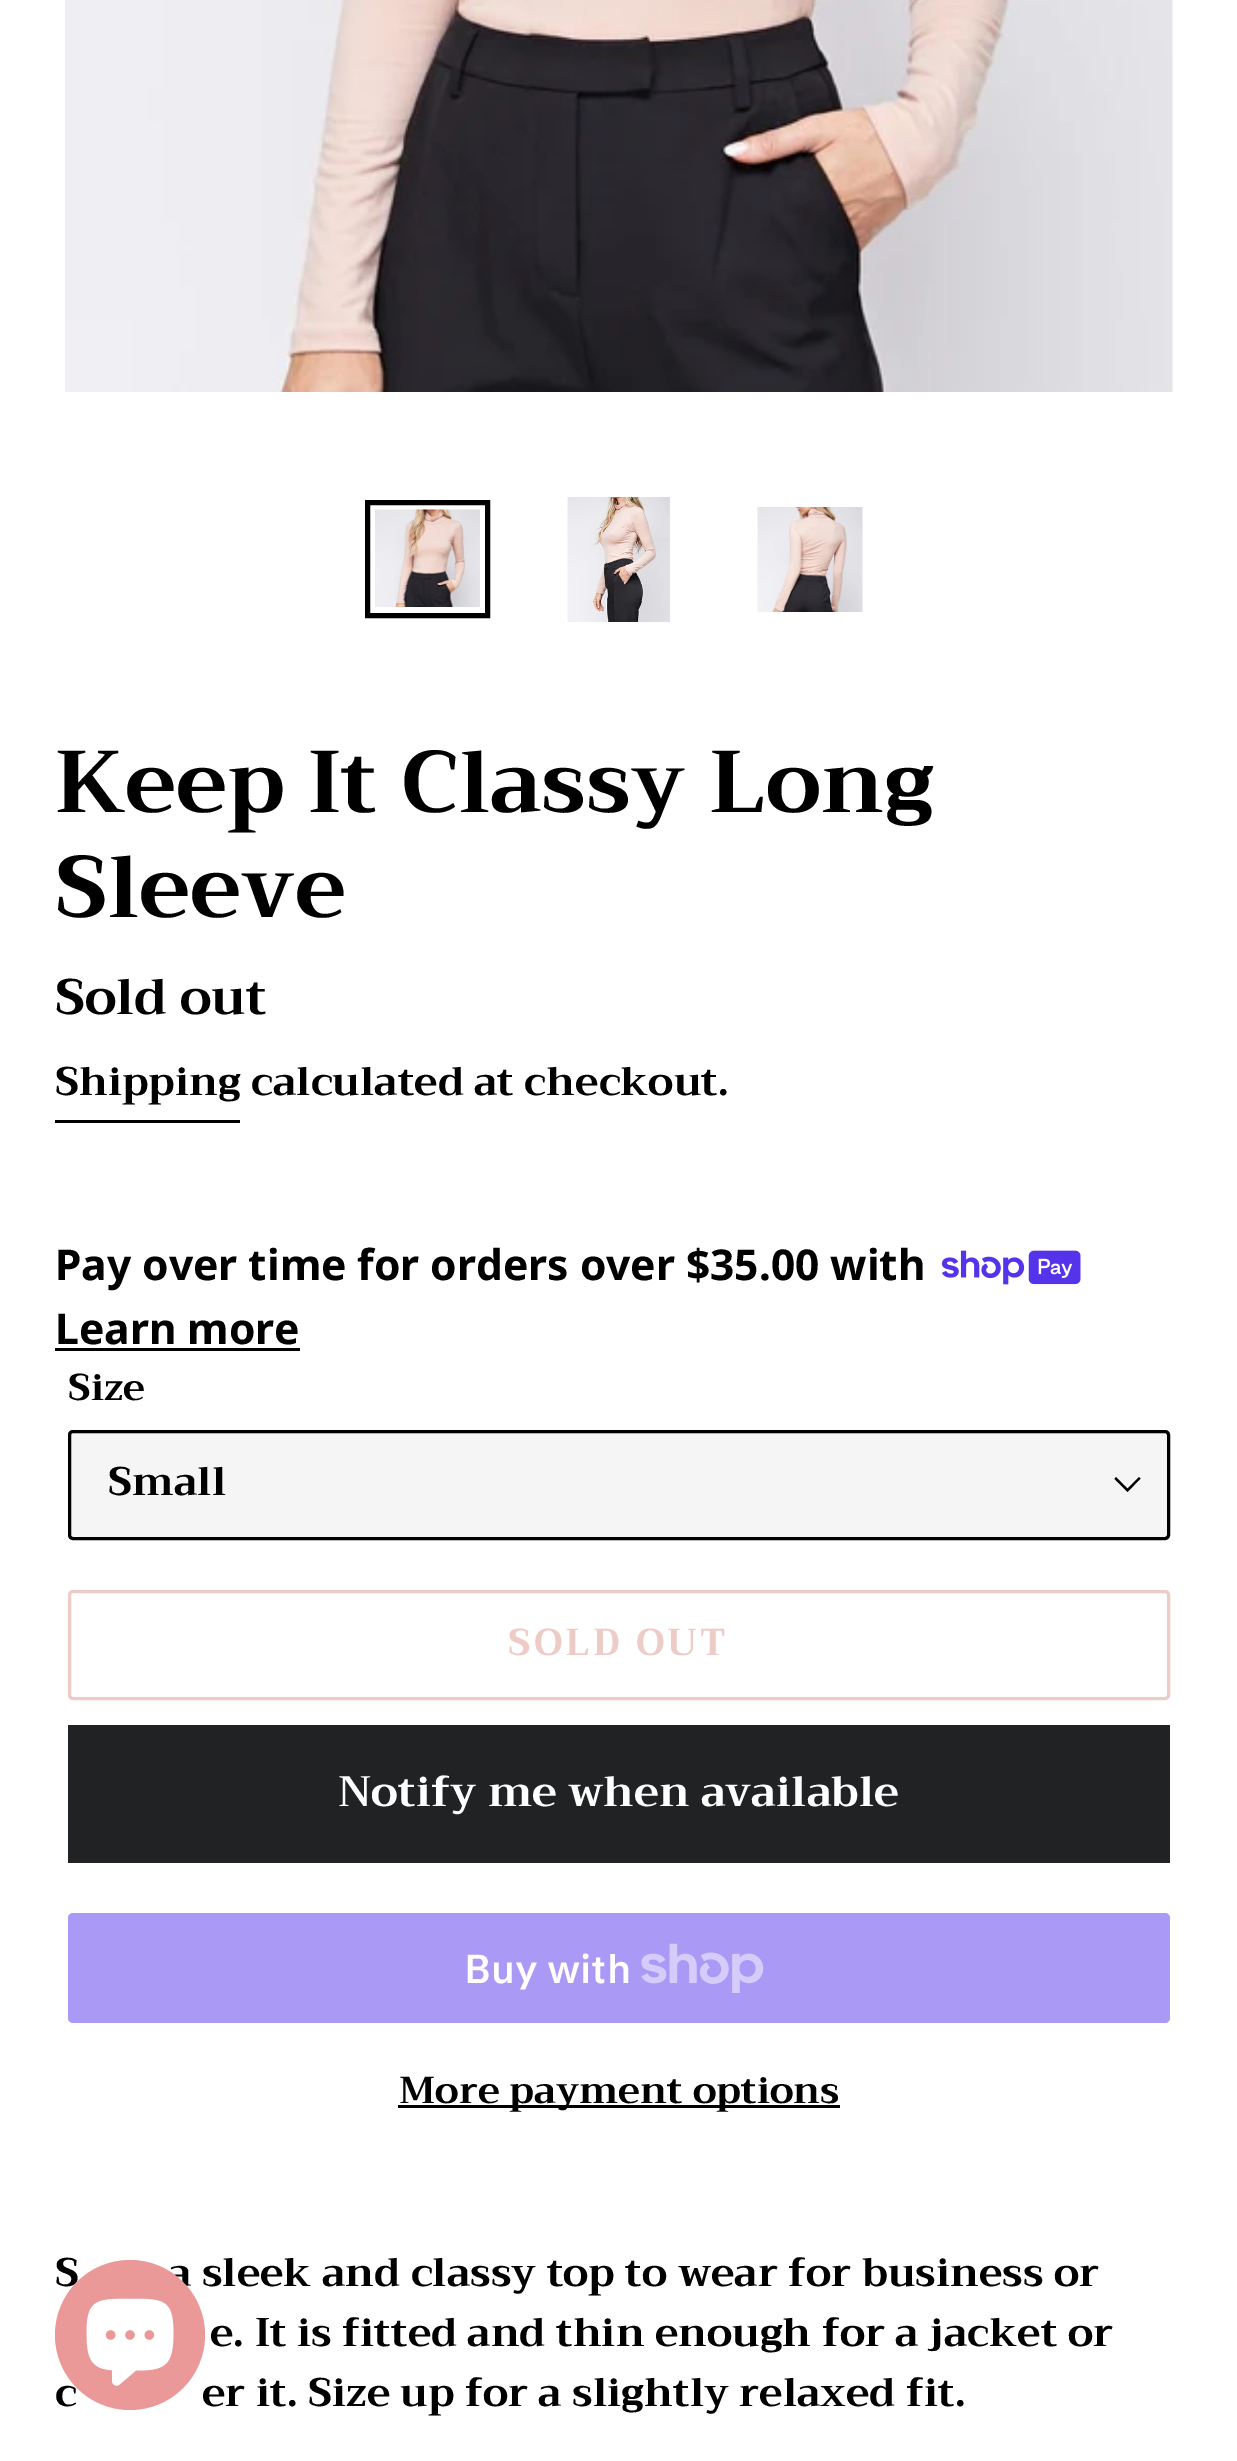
%!PS
<< /PageSize [1237 2461] >> setpagedevice
/roundrect { 5 dict begin { /r /h /w /y /x } { exch def } forall
  x r add y moveto x w add y 2 copy h add r arct x w add y h add x 1 index r arct
  x y h add x y r arct x y 2 copy exch w add exch r arct closepath end } def
/picture { 5 dict begin { /h /w /y /x /name } { exch def } forall
  gsave x y translate w h scale
  w h 8 [w 0 0 h 0 0] name (r) file false 3 colorimage grestore end } def
0 2461 translate 1 -1 scale
4 setmiterlimit
1 setgray
0 0 1237 2461 rectfill
(img1.rgb) 65 0 1108 392 picture
0 setgray
5 setlinewidth
367.5 502.5 120 113 rectstroke
(img2.rgb) 375 509 105 98 picture
(img3.rgb) 567 497 103 125 picture
(img4.rgb) 757 507 106 105 picture
/Trirong-Bold [87.5 0 0 -87.5 0 0] selectfont
55 812 moveto (Keep It Classy Long) show
55 917 moveto (Sleeve) show
/Trirong-Bold [50 0 0 -50 0 0] selectfont
55 1014 moveto (Sold out) show
/Trirong-Bold [40 0 0 -40 0 0] selectfont
55 1095 moveto (Shipping calculated at checkout.) show
55 1120 185 3 rectfill
/NotoSans-Bold [42.5 0 0 -42.5 0 0] selectfont
55 1280 moveto (Pay over time for orders over $35.00 with) show
(img5.rgb) 941 1250 140 35 picture
55 1344 moveto (Learn more) show
55 1348 245 3 rectfill
/Trirong-Bold [37.5 0 0 -37.5 0 0] selectfont
68 1400 moveto (Size) show
0.961 setgray
68 1430 1102 110 5 roundrect fill
0 setgray
newpath 1127.5 1492 moveto 1114.5 1479 lineto 1116 1477 lineto 1127.5 1488.5 lineto 1139 1477 lineto 1140.5 1478.5 lineto closepath fill
3 setlinewidth
69.5 1431.5 1099 107 3.5 roundrect stroke
/Trirong-Bold [40 0 0 -40 0 0] selectfont
108 1495 moveto (Small) show
0.929 0.796 0.776 setrgbcolor
69.5 1591.5 1099 107 3.5 roundrect stroke
/Trirong-Bold [37.5 0 0 -37.5 0 0] selectfont
508 1655 moveto 3 0 (SOLD OUT) ashow
0.125 0.133 0.137 setrgbcolor
68 1725 1102 138 rectfill
/Trirong-Bold [42.5 0 0 -42.5 0 0] selectfont
1 setgray
338 1806 moveto (Notify me when available) show
0.667 0.6 0.961 setrgbcolor
68 1913 1102 110 5 roundrect fill
/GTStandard-SemiBold [40 0 0 -40 0 0] selectfont
1 setgray
464 1983 moveto (Buy with) show
(img6.rgb) 641 1943 123 50 picture
0 setgray
398 2105 442 3 rectfill
/Trirong-Bold [37.5 0 0 -37.5 0 0] selectfont
399 2103 moveto (More payment options) show
/Trirong-Bold [40 0 0 -40 0 0] selectfont
55 2286 moveto (S) show
168 2286 moveto (a sleek and classy top to wear for business or) show
210 2346 moveto (e. It is fitted and thin enough for a jacket or) show
55 2406 moveto (c) show
202 2406 moveto (er it. Size up for a slightly relaxed fit.) show
0.922 0.596 0.596 setrgbcolor
newpath 130 2335 75 0 360 arc closepath fill
(img7.rgb) 86 2298 88 88 picture
showpage
